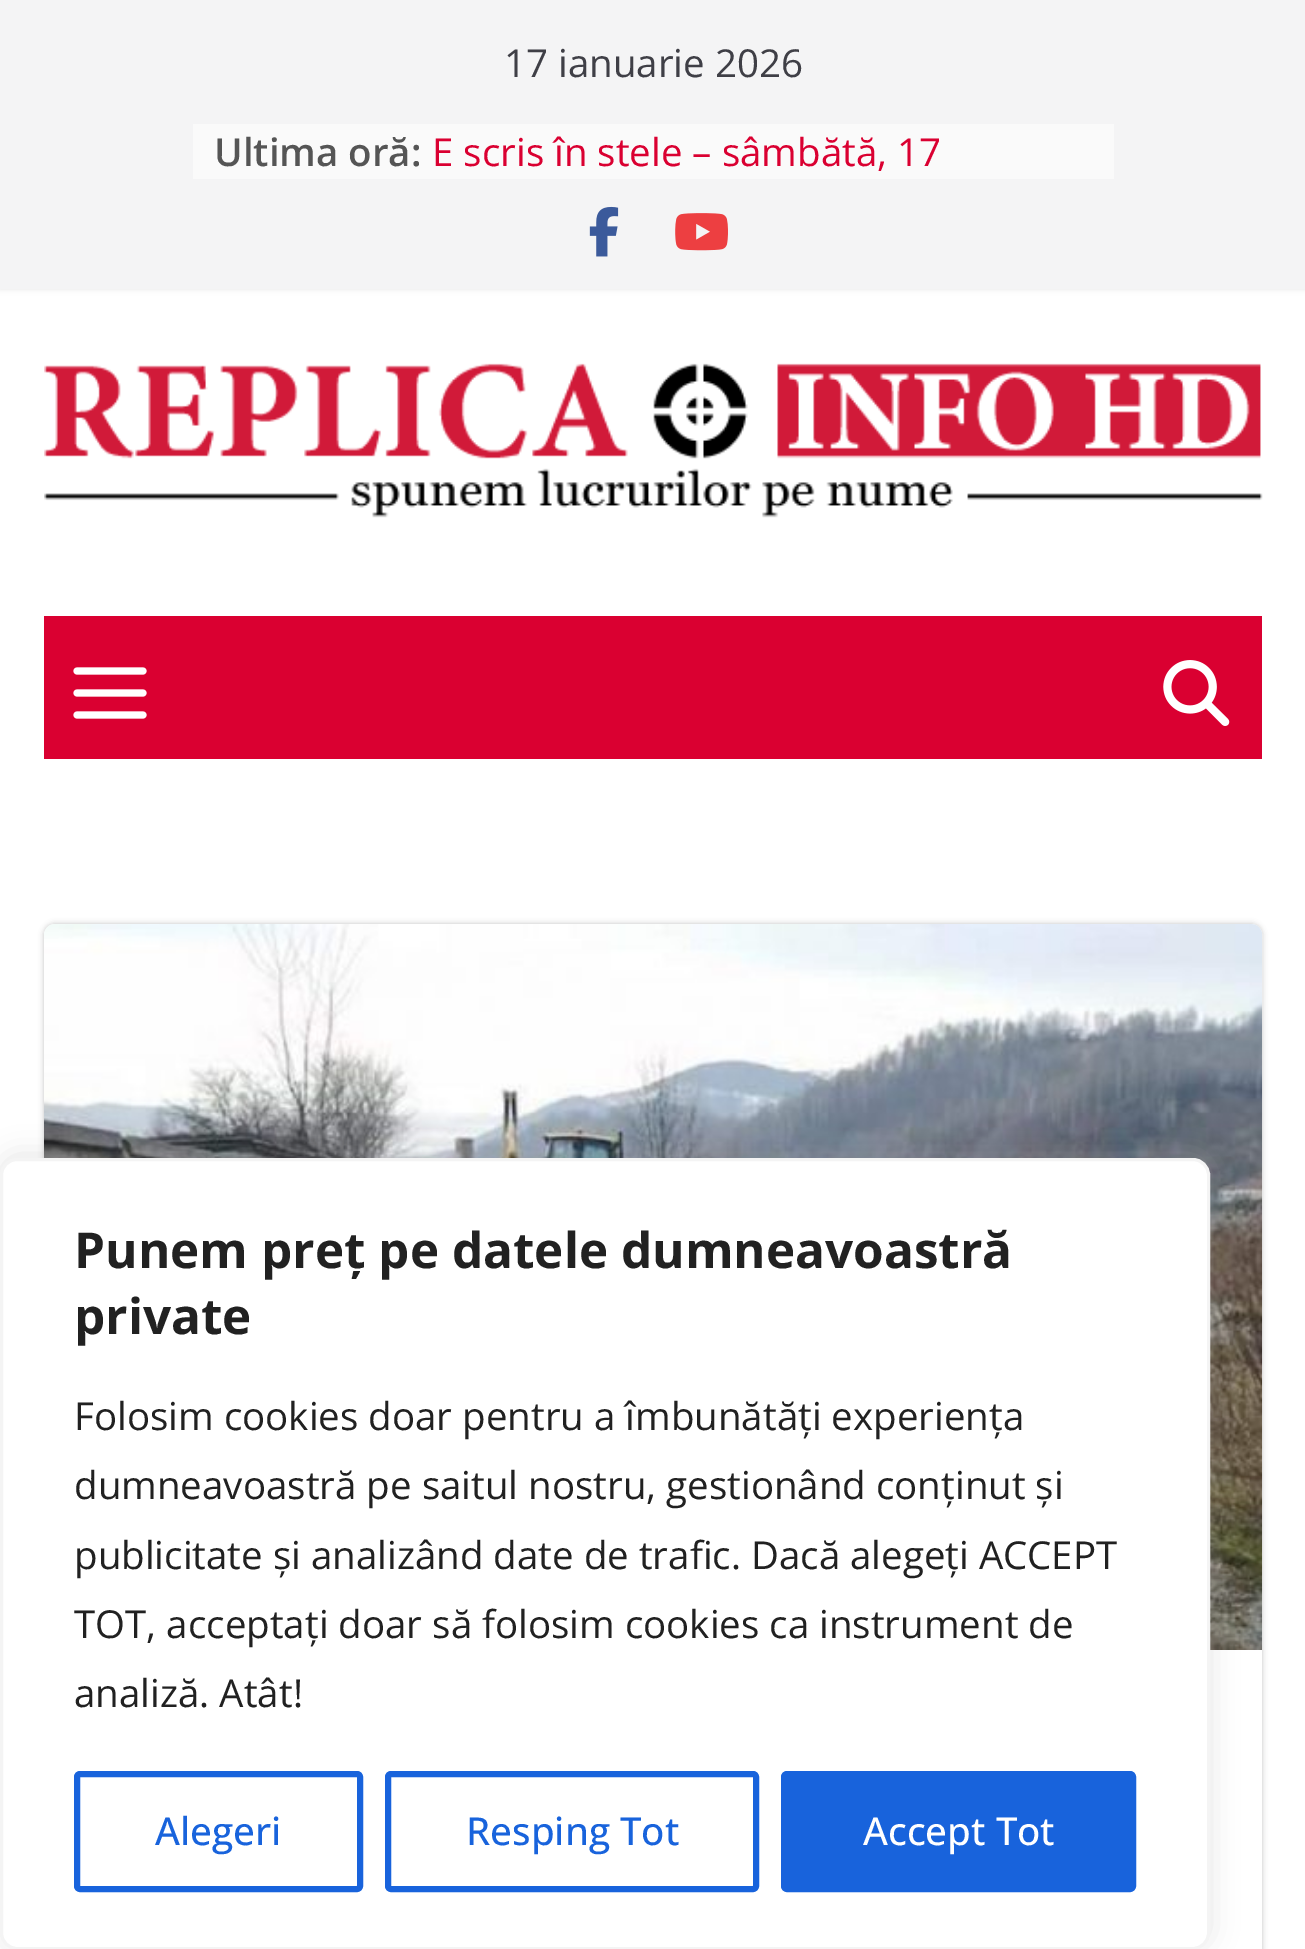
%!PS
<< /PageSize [1305 1949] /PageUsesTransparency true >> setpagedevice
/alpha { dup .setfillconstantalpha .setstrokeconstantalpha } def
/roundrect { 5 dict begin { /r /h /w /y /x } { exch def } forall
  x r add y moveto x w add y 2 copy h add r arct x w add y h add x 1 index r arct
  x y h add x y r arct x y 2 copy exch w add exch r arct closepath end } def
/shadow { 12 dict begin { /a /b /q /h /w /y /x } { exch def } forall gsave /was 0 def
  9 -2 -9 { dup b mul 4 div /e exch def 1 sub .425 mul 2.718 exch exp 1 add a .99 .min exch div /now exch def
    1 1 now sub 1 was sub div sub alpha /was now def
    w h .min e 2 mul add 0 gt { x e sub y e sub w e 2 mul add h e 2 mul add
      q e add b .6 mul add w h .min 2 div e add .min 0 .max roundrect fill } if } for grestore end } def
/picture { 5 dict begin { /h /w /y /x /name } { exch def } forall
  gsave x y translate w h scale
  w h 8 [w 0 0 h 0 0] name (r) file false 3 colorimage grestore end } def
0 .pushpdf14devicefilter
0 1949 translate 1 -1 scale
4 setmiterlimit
1 setgray
0 0 1305 1949 rectfill
0 setgray
0 0 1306 289 0 3 0.1 shadow
0.957 0.957 0.961 setrgbcolor
0 0 1305 289 rectfill
/OpenSans-Regular [38.5 0 0 -38.5 0 0] selectfont
0.247 0.247 0.275 setrgbcolor
504 77 moveto (17 ianuarie 2026) show
0.98 setgray
193 124 921 55 rectfill
/OpenSans-SemiBold [38.5 0 0 -38.5 0 0] selectfont
0.333 setgray
214 166 moveto (Ultima oră:) show
/OpenSans-Regular [38.5 0 0 -38.5 0 0] selectfont
0.855 0 0.192 setrgbcolor
432 166 moveto (E scris în stele – sâmbătă, 17) show
(img1.rgb) 589 206 30 51 picture
(img2.rgb) 675 213 53 38 picture
(img3.rgb) 44 363 1219 155 picture
44 616 1218 143 rectfill
(img4.rgb) 73 667 74 52 picture
(img5.rgb) 1163 660 67 66 picture
gsave
newpath 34 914 moveto 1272 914 lineto 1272 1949 lineto 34 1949 lineto closepath 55 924 moveto 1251 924 lineto 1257 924 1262 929 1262 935 curveto 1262 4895 lineto 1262 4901 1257 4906 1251 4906 curveto 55 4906 lineto 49 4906 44 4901 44 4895 curveto 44 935 lineto 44 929 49 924 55 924 curveto closepath eoclip newpath
0 setgray
44 924 1218 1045 11 3 0.24 shadow
grestore
(img6.rgb) 44 924 1219 726 picture
0.675 0.671 0.671 setrgbcolor
0 1155 1210 792 17 14 0.3 shadow
1 setgray
1.5 1159.5 1207 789 15.5 roundrect gsave fill grestore
0.957 setgray
3 setlinewidth
stroke
/OpenSans-Bold [49.5 0 0 -49.5 0 0] selectfont
0.129 setgray
74 1268 moveto (Punem preț pe datele dumneavoastră) show
74 1334 moveto (private) show
/OpenSans-Regular [38.5 0 0 -38.5 0 0] selectfont
74 1430 moveto (Folosim cookies doar pentru a îmbunătăți experiența) show
74 1499 moveto (dumneavoastră pe saitul nostru, gestionând conținut și) show
74 1569 moveto (publicitate și analizând date de trafic. Dacă alegeți ACCEPT) show
74 1638 moveto (TOT, acceptați doar să folosim cookies ca instrument de) show
74 1707 moveto (analiză. Atât!) show
0.094 0.388 0.863 setrgbcolor
6 setlinewidth
77 1774 283 115 3 roundrect stroke
/OpenSans-Medium [38.5 0 0 -38.5 0 0] selectfont
155 1845 moveto (Alegeri) show
388 1774 368 115 3 roundrect stroke
466 1845 moveto (Resping Tot) show
784 1774 349 115 3 roundrect gsave fill grestore
stroke
1 setgray
863 1845 moveto (Accept Tot) show
.poppdf14devicefilter showpage
